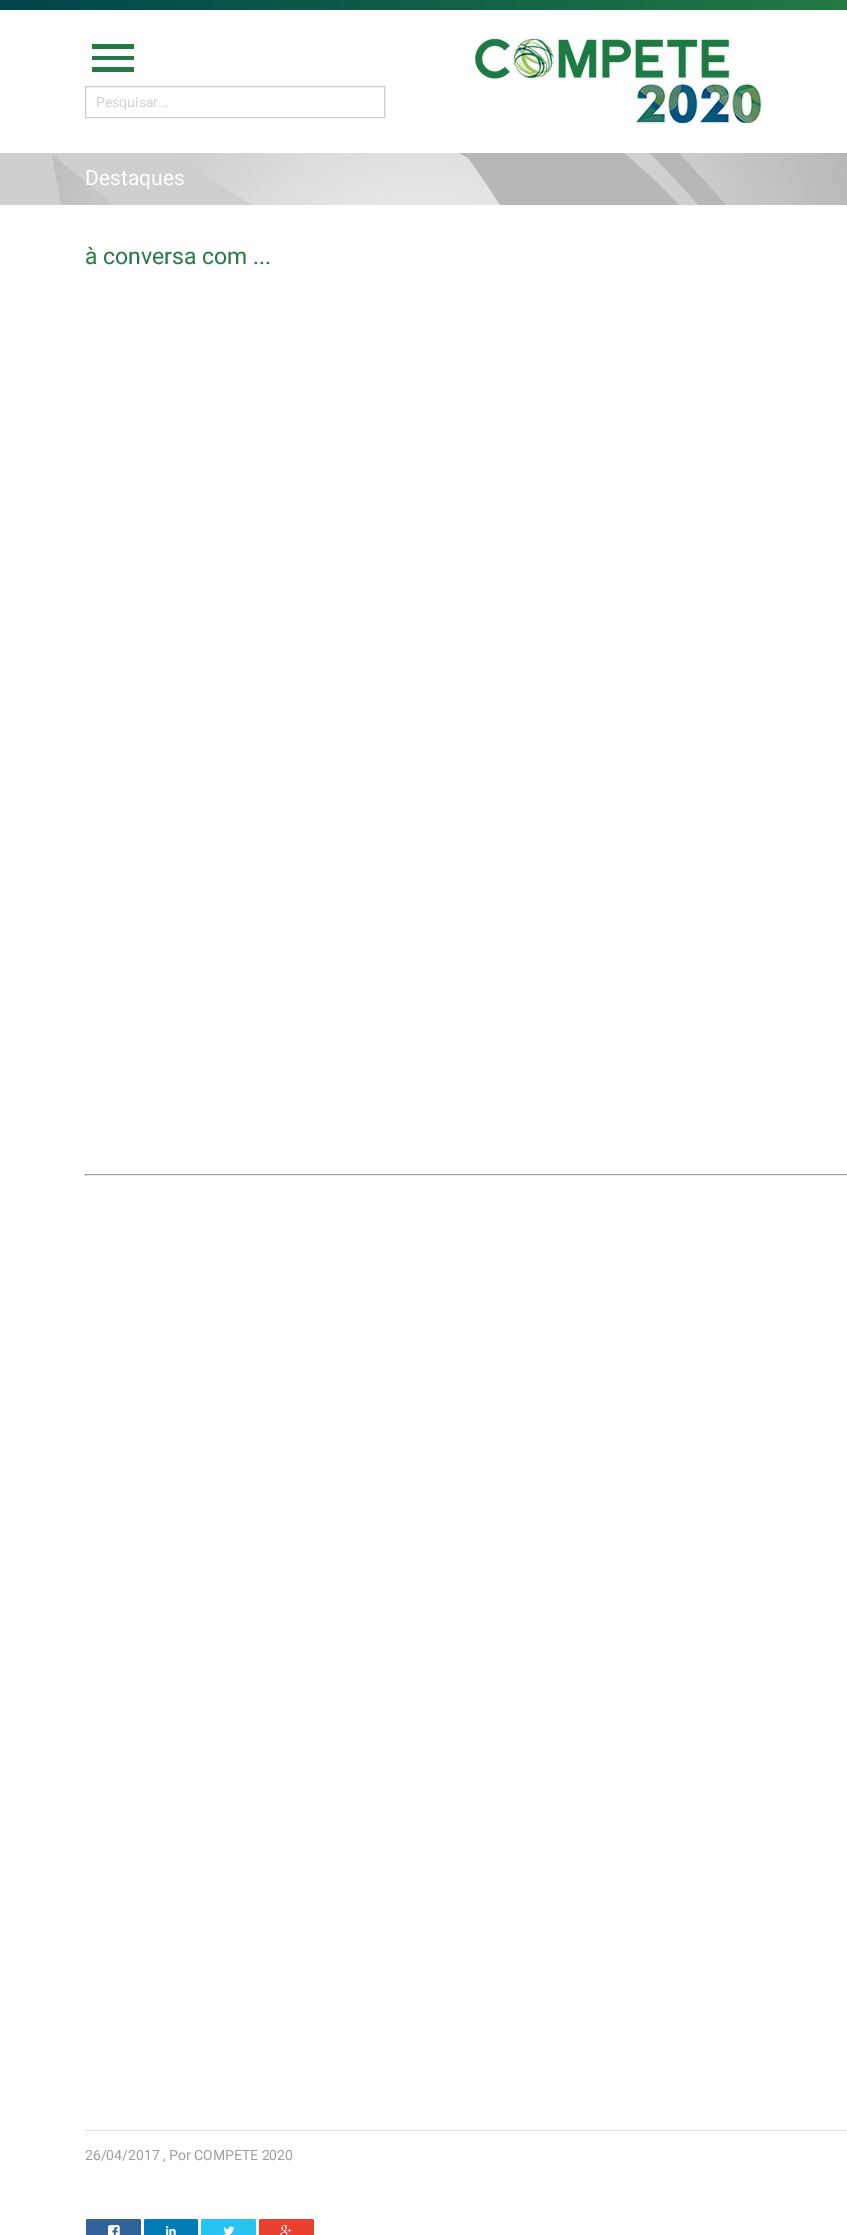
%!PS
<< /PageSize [847 2235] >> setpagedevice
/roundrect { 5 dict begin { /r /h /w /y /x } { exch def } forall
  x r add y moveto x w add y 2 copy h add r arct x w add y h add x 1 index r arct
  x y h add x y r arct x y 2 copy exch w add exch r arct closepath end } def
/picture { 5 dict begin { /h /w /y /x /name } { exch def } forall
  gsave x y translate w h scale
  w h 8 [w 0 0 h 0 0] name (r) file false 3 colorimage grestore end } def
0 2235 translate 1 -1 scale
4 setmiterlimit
1 setgray
0 0 847 2235 rectfill
gsave newpath 0 0 moveto 847 0 lineto 847 10 lineto 0 10 lineto closepath clip newpath
<< /ShadingType 2 /ColorSpace /DeviceRGB /Coords [847 5 0 5] /Extend [true true] /Function << /FunctionType 2 /Domain [0 1] /C0 [0.137 0.478 0.267] /C1 [0 0.271 0.294] /N 1 >> >> shfill grestore
0.137 0.478 0.267 setrgbcolor
newpath 92 44 moveto 134 44 lineto 134 49 lineto 92 49 lineto closepath 92 60 moveto 92 56 lineto 134 56 lineto 134 60 lineto closepath 92 72 moveto 92 67 lineto 134 67 lineto 134 72 lineto closepath fill
0.8 setgray
85.5 86.5 299 31 rectstroke
/Roboto-Regular [14 0 0 -14 0 0] selectfont
0.82 setgray
96 107 moveto (Pesquisar...) show
(img1.rgb) 474 37 288 88 picture
(img2.rgb) 0 153 847 52 picture
/Roboto-Regular [21 0 0 -21 0 0] selectfont
1 setgray
85 185 moveto (Destaques) show
/Roboto-Regular [23 0 0 -23 0 0] selectfont
0.137 0.478 0.267 setrgbcolor
85 264 moveto (à conversa com ...) show
0.624 setgray
85 1174 762 1 rectfill
0.933 setgray
85 1175 762 1 rectfill
0.624 setgray
85 1174 1 2 rectfill
0.878 setgray
85 2130 762 1 rectfill
/Roboto-Regular [14 0 0 -14 0 0] selectfont
0.62 setgray
85 2160 moveto (26/04/2017 , Por COMPETE 2020) show
0.188 0.38 0.6 setrgbcolor
86 2219 55 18 2 roundrect fill
(img3.rgb) 107 2225 13 10 picture
0 0.482 0.714 setrgbcolor
144 2219 54 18 2 roundrect fill
(img4.rgb) 166 2226 10 9 picture
0.149 0.769 0.945 setrgbcolor
201 2219 55 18 2 roundrect fill
(img5.rgb) 223 2226 12 9 picture
0.914 0.247 0.18 setrgbcolor
259 2219 55 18 2 roundrect fill
(img6.rgb) 280 2225 12 10 picture
showpage
